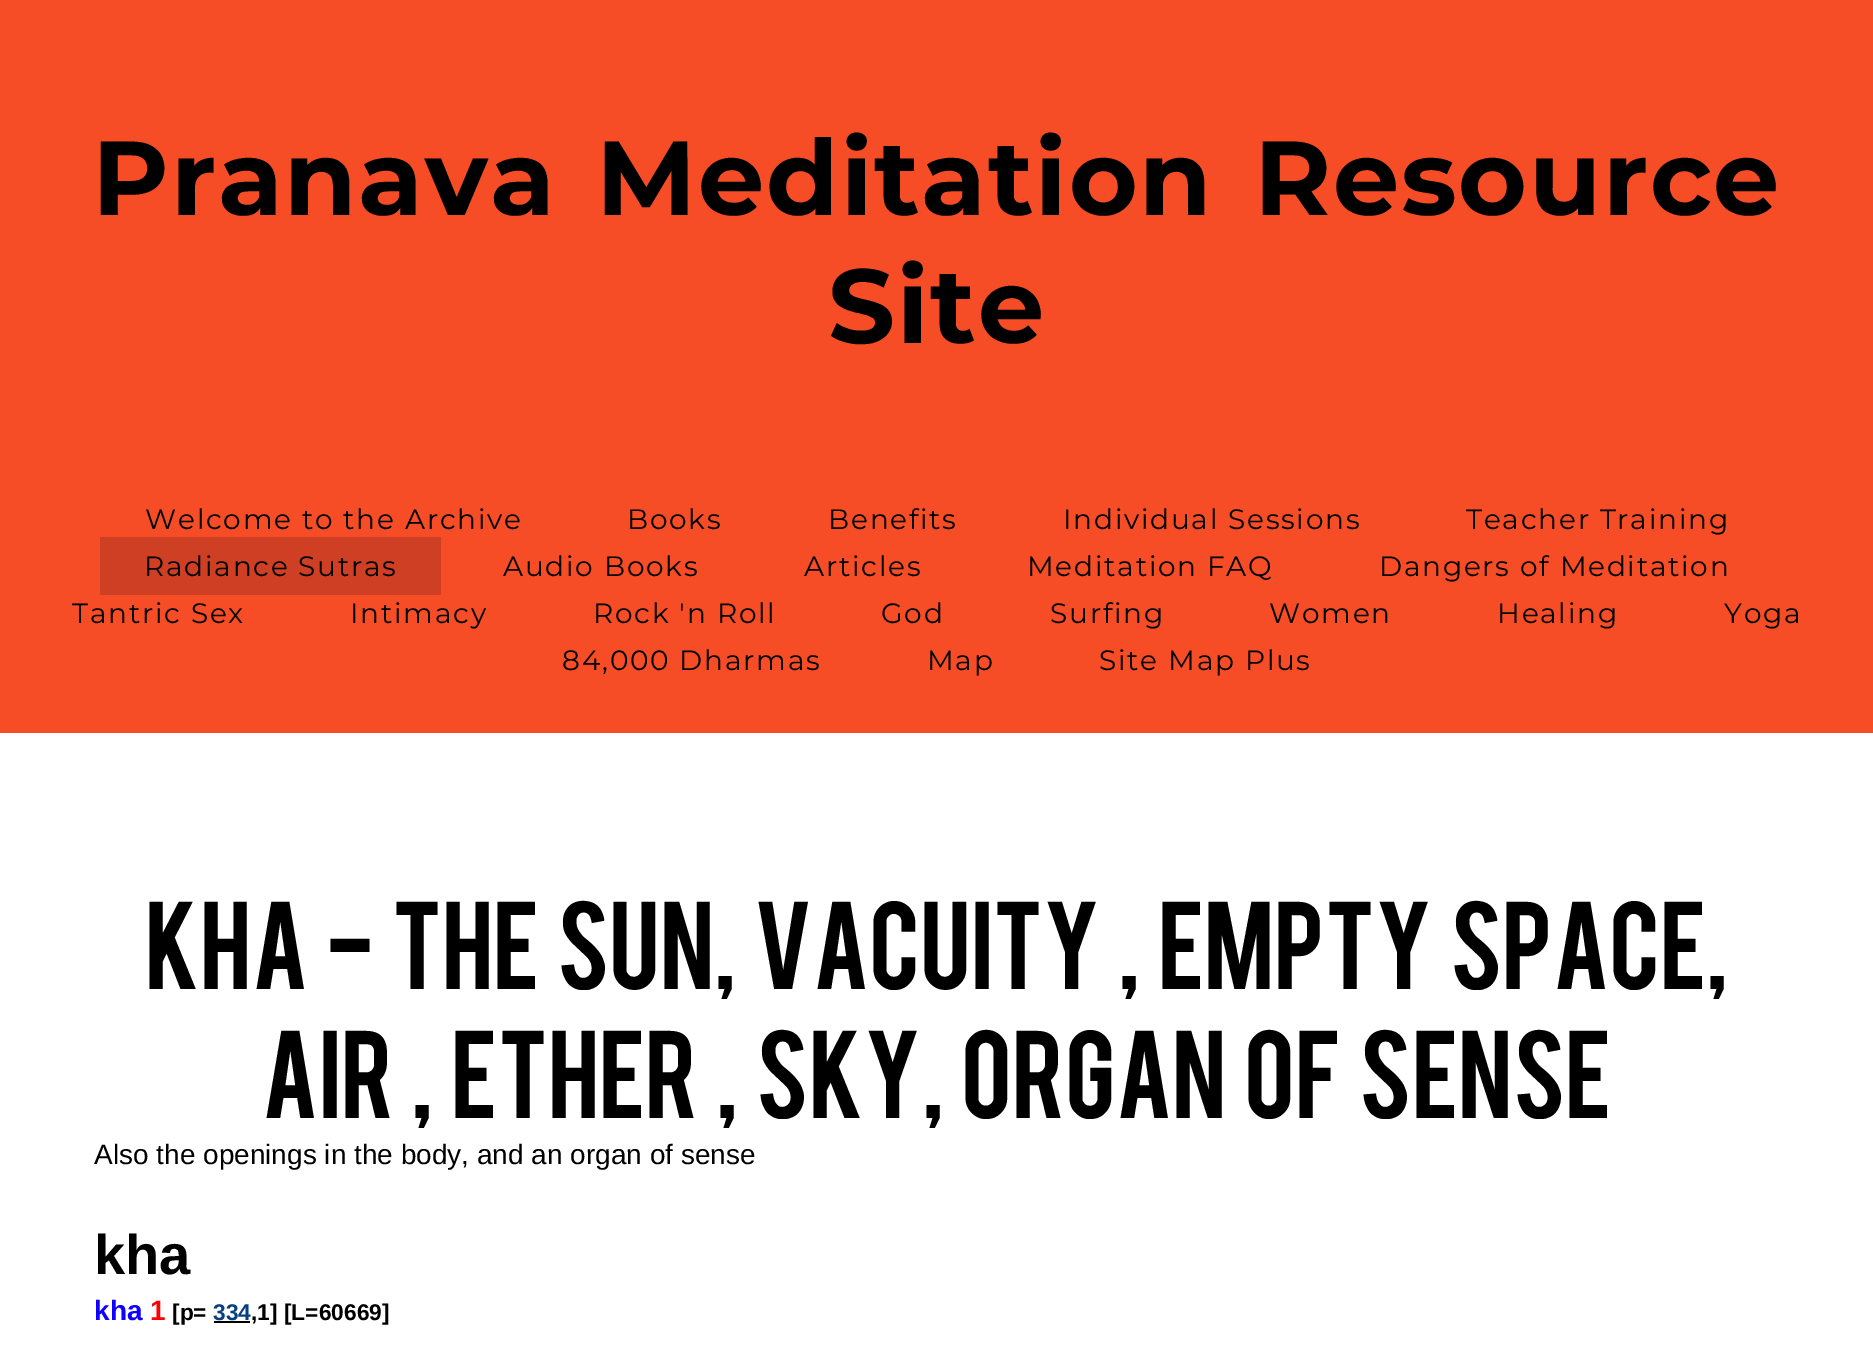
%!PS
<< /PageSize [1873 1350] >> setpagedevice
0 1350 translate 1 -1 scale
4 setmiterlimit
1 setgray
0 0 1873 1350 rectfill
0.965 0.302 0.149 setrgbcolor
0 0 1873 733 rectfill
/Montserrat-Bold [105 0 0 -105 0 0] selectfont
0 setgray
92 215 moveto 8.75 0 32 1.75 0 (Pranava Meditation Resource) awidthshow
828 343 moveto 1.75 0 (Site) ashow
/Montserrat-Regular [28 0 0 -28 0 0] selectfont
145 529 moveto 1.75 0 (Welcome to the Archive) ashow
627 529 moveto 1.75 0 (Books) ashow
828 529 moveto 1.75 0 (Benefits) ashow
1063 529 moveto 1.75 0 (Individual Sessions) ashow
1466 529 moveto 1.75 0 (Teacher Training) ashow
0.812 0.247 0.137 setrgbcolor
100 537 341 58 rectfill
0 setgray
144 576 moveto 1.75 0 (Radiance Sutras) ashow
503 576 moveto 1.75 0 (Audio Books) ashow
804 576 moveto 1.75 0 (Articles) ashow
1027 576 moveto 1.75 0 (Meditation FAQ) ashow
1379 576 moveto 1.75 0 (Dangers of Meditation) ashow
72 623 moveto 1.75 0 (Tantric Sex) ashow
350 623 moveto 1.75 0 (Intimacy) ashow
593 623 moveto 1.75 0 (Rock 'n Roll) ashow
881 623 moveto 1.75 0 (God) ashow
1050 623 moveto 1.75 0 (Surfing) ashow
1269 623 moveto 1.75 0 (Women) ashow
1497 623 moveto 1.75 0 (Healing) ashow
1724 623 moveto 1.75 0 (Yoga) ashow
562 670 moveto 1.75 0 (84,000 Dharmas) ashow
927 670 moveto 1.75 0 (Map) ashow
1099 670 moveto 1.75 0 (Site Map Plus) ashow
/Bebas-Regular [98 0 0 -98 0 0] selectfont
145 989 moveto 8.75 0 32 (Kha - the sun, vacuity , empty space,) widthshow
262 1118 moveto 8.75 0 32 (air , ether , sky, organ of sense) widthshow
/LiberationSans-Regular [28 0 0 -28 0 0] selectfont
94 1164 moveto (Also the openings in the body, and an organ of sense) show
/LiberationSans-Bold [56 0 0 -56 0 0] selectfont
94 1274 moveto (kha) show
/LiberationSans-Bold [28 0 0 -28 0 0] selectfont
0.063 0 1 setrgbcolor
94 1320 moveto (kha) show
0.996 0 0 setrgbcolor
150 1320 moveto (1) show
/LiberationSans-Bold [22.75 0 0 -22.75 0 0] selectfont
0 setgray
172 1320 moveto ([p=) show
0.027 0.247 0.502 setrgbcolor
213 1320 moveto (334) show
0 setgray
214 1321 36 2 rectfill
251 1320 moveto (,1] [L=60669]) show
showpage
